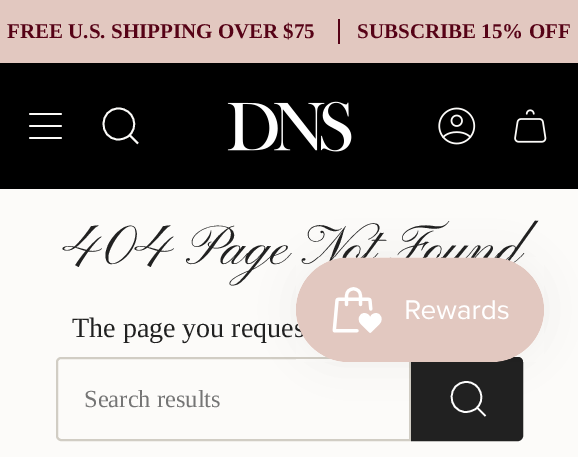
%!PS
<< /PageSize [578 457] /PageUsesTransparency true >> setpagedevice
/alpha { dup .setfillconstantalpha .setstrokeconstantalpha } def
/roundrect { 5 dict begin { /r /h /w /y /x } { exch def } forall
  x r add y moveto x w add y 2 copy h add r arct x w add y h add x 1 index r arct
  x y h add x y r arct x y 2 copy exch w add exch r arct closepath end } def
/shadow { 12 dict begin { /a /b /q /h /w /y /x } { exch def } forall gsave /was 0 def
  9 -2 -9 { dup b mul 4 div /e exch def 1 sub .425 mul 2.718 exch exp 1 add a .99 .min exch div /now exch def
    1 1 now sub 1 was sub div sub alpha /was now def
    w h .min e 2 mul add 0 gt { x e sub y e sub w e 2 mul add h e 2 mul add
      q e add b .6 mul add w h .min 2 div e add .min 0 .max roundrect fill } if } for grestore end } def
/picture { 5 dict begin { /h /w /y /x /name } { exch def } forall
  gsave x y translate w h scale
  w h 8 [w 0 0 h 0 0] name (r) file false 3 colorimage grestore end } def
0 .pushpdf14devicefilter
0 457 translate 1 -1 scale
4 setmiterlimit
0 setgray
0 0 578 457 rectfill
0.886 0.784 0.753 setrgbcolor
0 0 578 63 rectfill
/LiberationSerif-Bold [21 0 0 -21 0 0] selectfont
0.337 0.008 0.086 setrgbcolor
7 38 moveto (FREE U.S. SHIPPING OVER $75) show
357 38 moveto (SUBSCRIBE 15% OFF) show
338 19 2 25 rectfill
0.988 0.984 0.976 setrgbcolor
1.8 setlinewidth
1 setlinecap
1 setlinejoin
newpath 30 114 moveto 61 114 lineto 30 126 moveto 61 126 lineto 30 138 moveto 61 138 lineto stroke
0 setlinecap
0 setlinejoin
newpath 118.5 108.5 moveto 133.5 108.5 140 127.5 128 136.5 curveto 125 138.5 121.5 139.5 118 139.5 curveto 98 138.5 99 108.5 118.5 108.5 curveto closepath 129.5 135 moveto 138 143.5 lineto stroke
(img1.rgb) 227 101 125 51 picture
(img2.rgb) 438 107 38 38 picture
(img3.rgb) 514 109 33 34 picture
0 189 578 268 rectfill
/PinyonScript-Regular [56 0 0 -56 0 0] selectfont
0.129 setgray
59 264 moveto (404 Page Not Found) show
/LiberationSerif-Regular [28 0 0 -28 0 0] selectfont
72 337 moveto (The page you reques) show
0.82 0.804 0.769 setrgbcolor
2 setlinewidth
newpath 61 358 moveto 410 358 lineto 410 440 lineto 61 440 lineto 59 440 57 438 57 436 curveto 57 362 lineto 57 360 59 358 61 358 curveto closepath stroke
/LiberationSerif-Regular [24.5 0 0 -24.5 0 0] selectfont
0.459 setgray
84 407 moveto (Search results) show
0.129 setgray
newpath 412 358 moveto 518 358 lineto 520 358 522 360 522 362 curveto 522 436 lineto 522 438 520 440 518 440 curveto 412 440 lineto closepath gsave fill grestore
stroke
1 setgray
1.7 setlinewidth
newpath 466.5 382 moveto 480.5 382 487 400.5 475.5 409 curveto 472.5 411 469 412 465.5 412 curveto 446.5 411 447 382 466.5 382 curveto closepath 477 407.5 moveto 485.5 416 lineto stroke
0 setgray
296 257 248 105 52.5 22 0.05 shadow
(img4.rgb) 296 257 248 105 picture
.poppdf14devicefilter showpage
